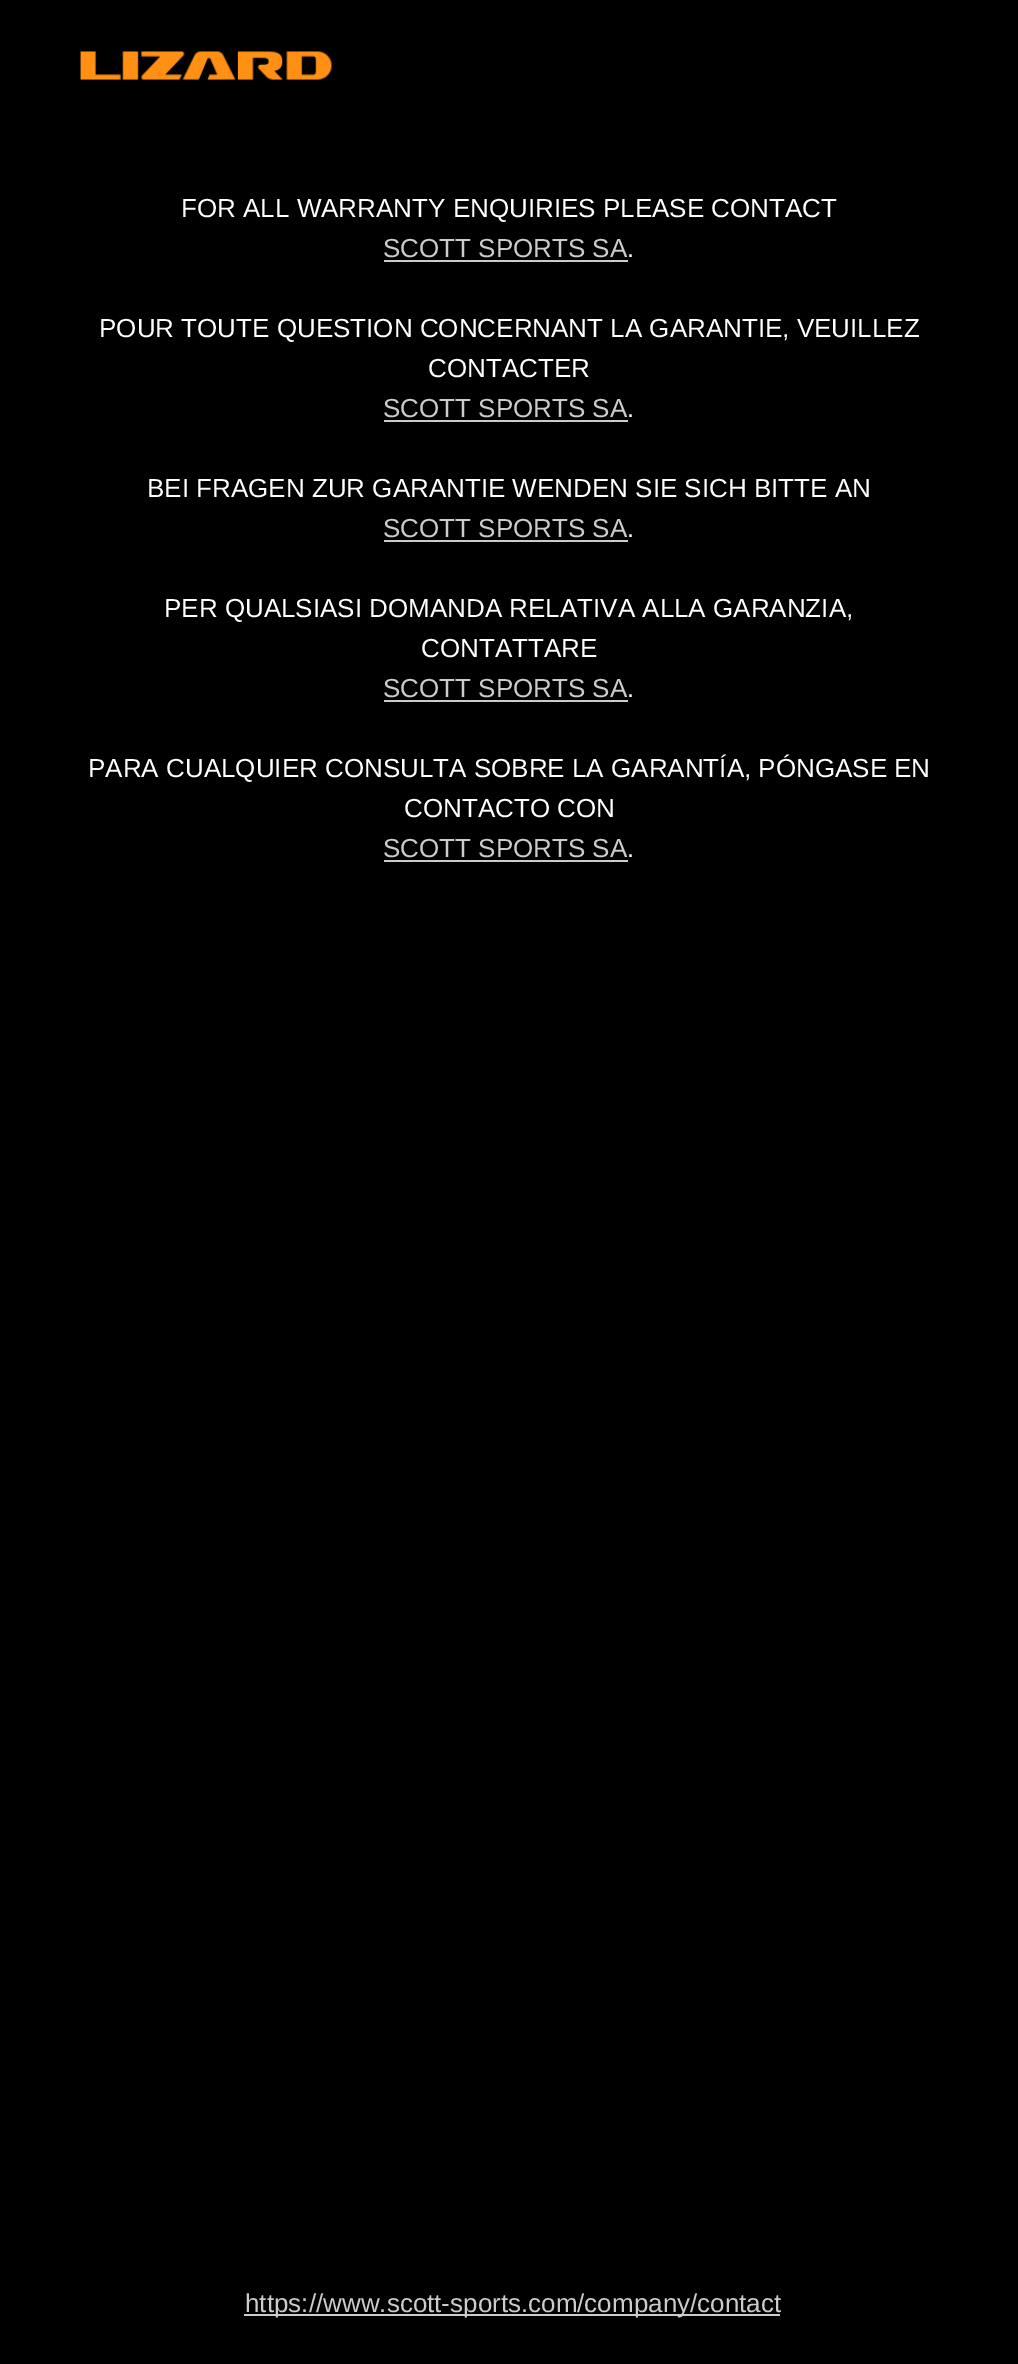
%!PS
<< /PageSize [1018 2364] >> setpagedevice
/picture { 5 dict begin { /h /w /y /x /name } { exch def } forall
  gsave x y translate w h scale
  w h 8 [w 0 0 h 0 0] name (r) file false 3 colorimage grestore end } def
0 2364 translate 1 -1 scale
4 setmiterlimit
0 setgray
0 0 1018 2364 rectfill
(img1.rgb) 80 51 252 29 picture
/LiberationSans-Regular [26 0 0 -26 0 0] selectfont
1 setgray
181 217 moveto (FOR ALL WARRANTY ENQUIRIES PLEASE CONTACT) show
0.8 setgray
383 257 moveto (SCOTT SPORTS SA) show
384 260 244 2 rectfill
1 setgray
627 257 moveto (.) show
99 337 moveto (POUR TOUTE QUESTION CONCERNANT LA GARANTIE, VEUILLEZ) show
428 377 moveto (CONTACTER) show
0.8 setgray
383 417 moveto (SCOTT SPORTS SA) show
384 420 244 2 rectfill
1 setgray
627 417 moveto (.) show
147 497 moveto (BEI FRAGEN ZUR GARANTIE WENDEN SIE SICH BITTE AN) show
0.8 setgray
383 537 moveto (SCOTT SPORTS SA) show
384 540 244 2 rectfill
1 setgray
627 537 moveto (.) show
164 617 moveto (PER QUALSIASI DOMANDA RELATIVA ALLA GARANZIA,) show
421 657 moveto (CONTATTARE) show
0.8 setgray
383 697 moveto (SCOTT SPORTS SA) show
384 700 244 2 rectfill
1 setgray
627 697 moveto (.) show
88 777 moveto (PARA CUALQUIER CONSULTA SOBRE LA GARANTÍA, PÓNGASE EN) show
404 817 moveto (CONTACTO CON) show
0.8 setgray
383 857 moveto (SCOTT SPORTS SA) show
384 860 244 2 rectfill
1 setgray
627 857 moveto (.) show
0.8 setgray
244 2314 536 2 rectfill
245 2312 moveto (https://www.scott-sports.com/company/contact) show
showpage
